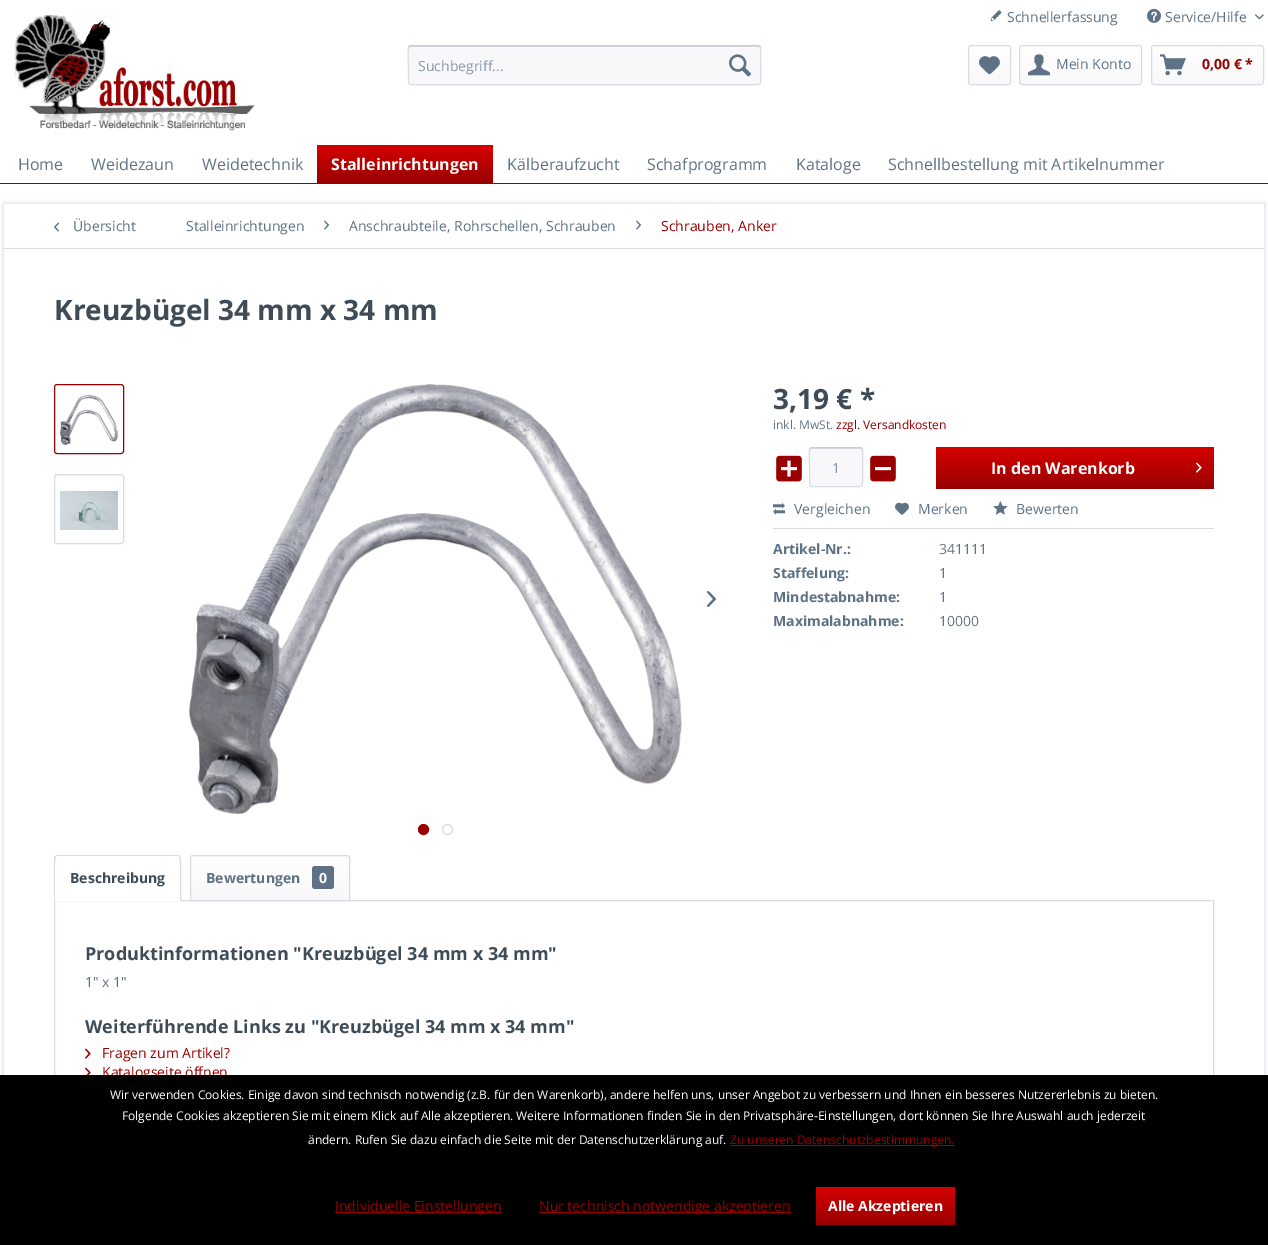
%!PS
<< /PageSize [1268 1245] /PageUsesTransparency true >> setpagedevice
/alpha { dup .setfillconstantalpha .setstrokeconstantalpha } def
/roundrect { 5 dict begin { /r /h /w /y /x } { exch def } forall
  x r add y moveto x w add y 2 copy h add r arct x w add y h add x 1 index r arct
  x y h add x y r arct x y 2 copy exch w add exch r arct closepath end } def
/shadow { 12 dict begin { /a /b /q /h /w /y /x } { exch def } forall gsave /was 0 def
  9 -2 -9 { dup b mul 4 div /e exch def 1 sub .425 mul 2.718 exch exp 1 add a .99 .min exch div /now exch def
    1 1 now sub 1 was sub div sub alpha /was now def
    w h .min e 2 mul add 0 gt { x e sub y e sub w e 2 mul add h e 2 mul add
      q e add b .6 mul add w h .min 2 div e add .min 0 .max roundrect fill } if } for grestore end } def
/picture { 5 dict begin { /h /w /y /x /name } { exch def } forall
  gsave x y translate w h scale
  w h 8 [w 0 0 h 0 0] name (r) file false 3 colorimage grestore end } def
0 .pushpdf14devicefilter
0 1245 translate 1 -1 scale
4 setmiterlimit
1 setgray
0 0 1268 1245 rectfill
(img1.rgb) 990 10 12 12 picture
/OpenSans-Regular [14 0 0 -14 0 0] selectfont
0.373 0.447 0.522 setrgbcolor
1007 22 moveto (Schnellerfassung) show
(img2.rgb) 1147 8 14 15 picture
1165 22 moveto (Service/Hilfe) show
(img3.rgb) 1255 14 9 6 picture
(img4.rgb) 14 15 241 116 picture
0.973 0.973 0.98 setrgbcolor
408 45 353 40 3 roundrect fill
0.855 0.855 0.898 setrgbcolor
newpath 411 47 moveto 758 47 lineto 759 47 760 48 760 49 curveto 760 48 760 46 758 46 curveto 411 46 lineto 409 46 409 48 409 49 curveto 409 48 410 47 411 47 curveto closepath fill
0.796 0.796 0.859 setrgbcolor
newpath 409 46 moveto 411 45.5 lineto 758 45.5 lineto 760 46 lineto stroke
0.855 0.855 0.898 setrgbcolor
newpath 760 46 moveto 761.5 48 760.5 67 760.5 70.5 curveto 760.5 76.5 lineto 760.5 78 762 84.5 758 84.5 curveto 411 84.5 lineto 407 84.5 408.5 78 408.5 76.5 curveto 408.5 70.5 lineto 408.5 67 407.5 48 409 46 curveto stroke
0.529 0.596 0.663 setrgbcolor
418 71 moveto (Suchbegriff...) show
(img5.rgb) 729 54 22 23 picture
gsave 969 46 41 38 2 roundrect clip newpath
<< /ShadingType 2 /ColorSpace /DeviceRGB /Coords [990 46 990 84] /Extend [true true] /Function << /FunctionType 2 /Domain [0 1] /C0 [1 1 1] /C1 [0.973 0.973 0.98] /N 1 >> >> shfill grestore
0.855 0.855 0.898 setrgbcolor
968.5 45.5 42 39 2.5 roundrect stroke
(img6.rgb) 979 56 21 19 picture
gsave 1020 46 121 38 2 roundrect clip newpath
<< /ShadingType 2 /ColorSpace /DeviceRGB /Coords [1081 46 1081 84] /Extend [true true] /Function << /FunctionType 2 /Domain [0 1] /C0 [1 1 1] /C1 [0.973 0.973 0.98] /N 1 >> >> shfill grestore
1019.5 45.5 122 39 2.5 roundrect stroke
(img7.rgb) 1028 54 22 22 picture
0.373 0.447 0.522 setrgbcolor
1056 69 moveto (Mein Konto) show
gsave 1152 46 111 38 2 roundrect clip newpath
<< /ShadingType 2 /ColorSpace /DeviceRGB /Coords [1208 46 1208 84] /Extend [true true] /Function << /FunctionType 2 /Domain [0 1] /C0 [1 1 1] /C1 [0.973 0.973 0.98] /N 1 >> >> shfill grestore
0.855 0.855 0.898 setrgbcolor
1151.5 45.5 112 39 2.5 roundrect stroke
(img8.rgb) 1160 54 26 22 picture
/OpenSans-Bold [14 0 0 -14 0 0] selectfont
0.6 0 0 setrgbcolor
1202 69 moveto (0,00 € *) show
0 183 1268 1 rectfill
/OpenSans-Regular [16 0 0 -16 0 0] selectfont
0.373 0.447 0.522 setrgbcolor
18 170 moveto (Home) show
91 170 moveto (Weidezaun) show
202 170 moveto (Weidetechnik) show
gsave newpath 320 145 moveto 490 145 lineto 491.5 145 493 146.5 493 148 curveto 493 183 lineto 317 183 lineto 317 148 lineto 317 146.5 318.5 145 320 145 curveto closepath clip newpath
<< /ShadingType 2 /ColorSpace /DeviceRGB /Coords [405 145 405 183] /Extend [true true] /Function << /FunctionType 2 /Domain [0 1] /C0 [0.839 0 0] /C1 [0.6 0 0] /N 1 >> >> shfill grestore
/OpenSans-Bold [16 0 0 -16 0 0] selectfont
1 setgray
331 170 moveto (Stalleinrichtungen) show
/OpenSans-Regular [16 0 0 -16 0 0] selectfont
0.373 0.447 0.522 setrgbcolor
507 170 moveto (Kälberaufzucht) show
647 170 moveto (Schafprogramm) show
796 170 moveto (Kataloge) show
888 170 moveto (Schnellbestellung mit Artikelnummer) show
gsave
newpath 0 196 moveto 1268 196 lineto 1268 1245 lineto 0 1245 lineto closepath 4 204 moveto 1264 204 lineto 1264 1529 lineto 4 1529 lineto closepath eoclip newpath
0.855 0.855 0.898 setrgbcolor
3 203 1262 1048 0 2 1 shadow
grestore
0.855 0.855 0.898 setrgbcolor
4 248 1260 1 rectfill
(img9.rgb) 54 222 5 10 picture
/OpenSans-Regular [14 0 0 -14 0 0] selectfont
0.373 0.447 0.522 setrgbcolor
73 231 moveto (Übersicht) show
186 231 moveto (Stalleinrichtungen) show
(img10.rgb) 324 220 5 10 picture
349 231 moveto (Anschraubteile, Rohrschellen, Schrauben) show
(img10.rgb) 636 220 5 10 picture
0.6 0 0 setrgbcolor
661 231 moveto (Schrauben, Anker) show
/OpenSans-Bold [28 0 0 -28 0 0] selectfont
0.247 0.298 0.345 setrgbcolor
54 320 moveto (Kreuzbügel 34 mm x 34 mm) show
0.6 0 0 setrgbcolor
54.5 384.5 69 69 2.5 roundrect stroke
(img11.rgb) 60 395 58 50 picture
0.855 0.855 0.898 setrgbcolor
54.5 474.5 69 69 2.5 roundrect stroke
(img12.rgb) 60 491 58 39 picture
(img13.rgb) 189 384 493 430 picture
(img14.rgb) 707 591 9 16 picture
0.6 0 0 setrgbcolor
newpath 423.5 829.5 5 0 360 arc closepath gsave fill grestore
stroke
0.855 0.855 0.898 setrgbcolor
newpath 447.5 829.5 5 0 360 arc closepath stroke
0.247 0.298 0.345 setrgbcolor
773 409 moveto (3,19 € *) show
/OpenSans-Regular [12 0 0 -12 0 0] selectfont
0.373 0.447 0.522 setrgbcolor
773 429 moveto (inkl. MwSt.) show
0.6 0 0 setrgbcolor
836 429 moveto (zzgl. Versandkosten) show
(img15.rgb) 776 455 26 27 picture
0.973 0.973 0.98 setrgbcolor
809 447 54 40 3 roundrect fill
0.855 0.855 0.898 setrgbcolor
newpath 812 449 moveto 860 449 lineto 861 449 862 450 862 451 curveto 862 446 856 448 852 448 curveto 820 448 lineto 816 448 810 446 810 451 curveto 810 450 811 449 812 449 curveto closepath fill
0.796 0.796 0.859 setrgbcolor
newpath 810 448 moveto 812 447.5 lineto 860 447.5 lineto 862 448 lineto stroke
0.855 0.855 0.898 setrgbcolor
newpath 862 448 moveto 863.5 450 862.5 464 862.5 467 curveto 862.5 478.5 lineto 862.5 488.5 863 486.5 852 486.5 curveto 820 486.5 lineto 809 486.5 809.5 488.5 809.5 478.5 curveto 809.5 467 lineto 809.5 464 808.5 450 810 448 curveto stroke
/OpenSans-Regular [14 0 0 -14 0 0] selectfont
0.529 0.596 0.663 setrgbcolor
832 473 moveto (1) show
(img16.rgb) 870 455 26 27 picture
gsave 936 447 278 42 3 roundrect clip newpath
<< /ShadingType 2 /ColorSpace /DeviceRGB /Coords [1075 447 1075 489] /Extend [true true] /Function << /FunctionType 2 /Domain [0 1] /C0 [0.839 0 0] /C1 [0.6 0 0] /N 1 >> >> shfill grestore
/OpenSans-Bold [16 0 0 -16 0 0] selectfont
1 setgray
991 474 moveto (In den Warenkorb) show
(img17.rgb) 1196 462 6 11 picture
0.855 0.855 0.898 setrgbcolor
773 528 441 1 rectfill
(img18.rgb) 773 502 12 13 picture
/OpenSans-Regular [14 0 0 -14 0 0] selectfont
0.373 0.447 0.522 setrgbcolor
794 514 moveto (Vergleichen) show
(img19.rgb) 895 502 14 13 picture
918 514 moveto (Merken) show
(img20.rgb) 993 501 15 14 picture
1016 514 moveto (Bewerten) show
/OpenSans-Bold [14 0 0 -14 0 0] selectfont
773 554 moveto (Artikel-Nr.:) show
/OpenSans-Regular [14 0 0 -14 0 0] selectfont
939 554 moveto (341111) show
/OpenSans-Bold [14 0 0 -14 0 0] selectfont
773 578 moveto (Staffelung:) show
/OpenSans-Regular [14 0 0 -14 0 0] selectfont
939 578 moveto (1) show
/OpenSans-Bold [14 0 0 -14 0 0] selectfont
773 602 moveto (Mindestabnahme:) show
/OpenSans-Regular [14 0 0 -14 0 0] selectfont
939 602 moveto (1) show
/OpenSans-Bold [14 0 0 -14 0 0] selectfont
773 626 moveto (Maximalabnahme:) show
/OpenSans-Regular [14 0 0 -14 0 0] selectfont
939 626 moveto (10000) show
0.855 0.855 0.898 setrgbcolor
54.5 900.5 1159 230 rectstroke
1 setgray
newpath 57 855 moveto 178 855 lineto 179.5 855 181 856.5 181 858 curveto 181 901 lineto 54 901 lineto 54 858 lineto 54 856.5 55.5 855 57 855 curveto closepath fill
0.855 0.855 0.898 setrgbcolor
newpath 57 855 moveto 55 856 lineto 56 857 lineto 57 856 lineto 178 856 lineto 179 857 lineto 180 856 lineto 178 855 lineto closepath fill
newpath 181 901 moveto 181 896 182 858 180 856 curveto 179 857 lineto 181 858 180 895 180 900 curveto closepath fill
1 setgray
newpath 181 901 moveto 180 900 lineto 55 900 lineto 54 901 lineto closepath fill
0.855 0.855 0.898 setrgbcolor
newpath 54 901 moveto 55 900 lineto 55 895 54 858 56 857 curveto 55 856 lineto 54 858 lineto closepath fill
/OpenSans-Bold [14 0 0 -14 0 0] selectfont
0.247 0.298 0.345 setrgbcolor
70 883 moveto (Beschreibung) show
gsave newpath 193 856 moveto 347 856 lineto 348 856 349 857 349 858 curveto 349 900 lineto 191 900 lineto 191 858 lineto 191 857 192 856 193 856 curveto closepath clip newpath
<< /ShadingType 2 /ColorSpace /DeviceRGB /Coords [270 856 270 900] /Extend [true true] /Function << /FunctionType 2 /Domain [0 1] /C0 [1 1 1] /C1 [0.973 0.973 0.98] /N 1 >> >> shfill grestore
0.855 0.855 0.898 setrgbcolor
newpath 193 855.5 moveto 347 855.5 lineto 348.5 855.5 349.5 856.5 349.5 858 curveto 349.5 900.5 lineto 190.5 900.5 lineto 190.5 858 lineto 190.5 856.5 191.5 855.5 193 855.5 curveto closepath stroke
0.373 0.447 0.522 setrgbcolor
206 883 moveto (Bewertungen) show
312 866 22 23 3 roundrect fill
1 setgray
319 883 moveto (0) show
/OpenSans-Bold [18 0 0 -18 0 0] selectfont
0.247 0.298 0.345 setrgbcolor
85 960 moveto (Produktinformationen "Kreuzbügel 34 mm x 34 mm") show
/OpenSans-Regular [14 0 0 -14 0 0] selectfont
0.373 0.447 0.522 setrgbcolor
85 987 moveto (1" x 1") show
/OpenSans-Bold [18 0 0 -18 0 0] selectfont
0.247 0.298 0.345 setrgbcolor
85 1033 moveto (Weiterführende Links zu "Kreuzbügel 34 mm x 34 mm") show
(img21.rgb) 85 1048 6 11 picture
/OpenSans-Regular [14 0 0 -14 0 0] selectfont
0.6 0 0 setrgbcolor
102 1058 moveto (Fragen zum Artikel?) show
(img22.rgb) 85 1067 6 8 picture
102 1077 moveto (Katalogseite öffnen) show
0 setgray
0 1075 1268 170 rectfill
/OpenSans-Regular [12 0 0 -12 0 0] selectfont
1 setgray
110 1099 moveto (Wir verwenden Cookies. Einige davon sind technisch notwendig \(z.B. für den Warenkorb\), andere helfen uns, unser Angebot zu verbessern und Ihnen ein besseres Nutzererlebnis zu bieten.) show
122 1120 moveto (Folgende Cookies akzeptieren Sie mit einem Klick auf Alle akzeptieren. Weitere Informationen finden Sie in den Privatsphäre-Einstellungen, dort können Sie Ihre Auswahl auch jederzeit) show
308 1144 moveto (ändern. Rufen Sie dazu einfach die Seite mit der Datenschutzerklärung auf.) show
0.6 0 0 setrgbcolor
730 1145 225 1 rectfill
730 1144 moveto (Zu unseren Datenschutzbestimmungen.) show
335 1212 167 1 rectfill
/OpenSans-Regular [14 0 0 -14 0 0] selectfont
335 1211 moveto (Individuelle Einstellungen) show
539 1212 252 1 rectfill
539 1211 moveto (Nur technisch notwendige akzeptieren) show
gsave 816 1187 139 38 3 roundrect clip newpath
<< /ShadingType 2 /ColorSpace /DeviceRGB /Coords [886 1187 886 1225] /Extend [true true] /Function << /FunctionType 2 /Domain [0 1] /C0 [0.839 0 0] /C1 [0.6 0 0] /N 1 >> >> shfill grestore
/OpenSans-Bold [14 0 0 -14 0 0] selectfont
1 setgray
828 1211 moveto (Alle Akzeptieren) show
.poppdf14devicefilter showpage
